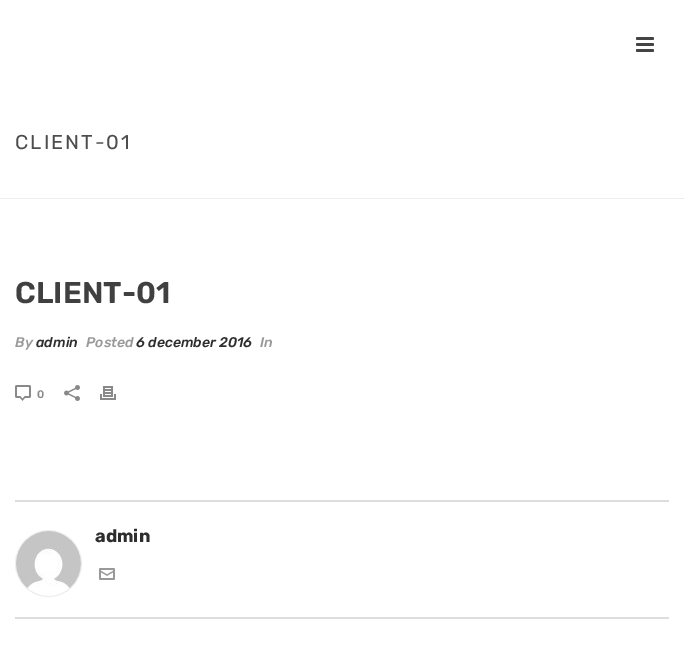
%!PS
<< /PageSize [684 663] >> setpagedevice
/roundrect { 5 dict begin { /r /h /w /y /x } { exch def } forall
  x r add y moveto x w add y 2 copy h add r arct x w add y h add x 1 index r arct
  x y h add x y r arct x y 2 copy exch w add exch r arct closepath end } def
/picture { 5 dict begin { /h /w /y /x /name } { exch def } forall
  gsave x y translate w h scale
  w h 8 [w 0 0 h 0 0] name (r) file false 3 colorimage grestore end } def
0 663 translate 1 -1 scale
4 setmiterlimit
1 setgray
0 0 684 663 rectfill
0.929 setgray
0 198 684 1 rectfill
0.267 setgray
636 37 18 3 1.5 roundrect fill
636 43 18 3 1.5 roundrect fill
636 49 18 3 1.5 roundrect fill
/Rubik-Regular [20 0 0 -20 0 0] selectfont
0.302 setgray
15 149 moveto 2 0 (CLIENT-01) ashow
/Rubik-SemiBold [30 0 0 -30 0 0] selectfont
0.251 setgray
15 303 moveto (CLIENT-01) show
/Rubik-MediumItalic [14 0 0 -14 0 0] selectfont
0.6 setgray
15 347 moveto (By) show
0.18 setgray
36 347 moveto (admin) show
0.6 setgray
86 347 moveto (Posted) show
0.18 setgray
136 347 moveto (6 december 2016) show
0.6 setgray
260 347 moveto (In) show
(img1.rgb) 15 385 16 16 picture
/Rubik-Medium [11 0 0 -11 0 0] selectfont
0.537 setgray
37 398 moveto (0) show
(img2.rgb) 64 385 16 16 picture
(img3.rgb) 100 386 16 14 picture
0.867 setgray
15 500 654 2 rectfill
15 617 654 2 rectfill
0.933 setgray
newpath 48.5 563.5 33 0 360 arc closepath stroke
(img4.rgb) 16 531 65 57 picture
/Rubik-Bold [18 0 0 -18 0 0] selectfont
0.18 setgray
95 542 moveto (admin) show
(img5.rgb) 99 568 16 12 picture
showpage
